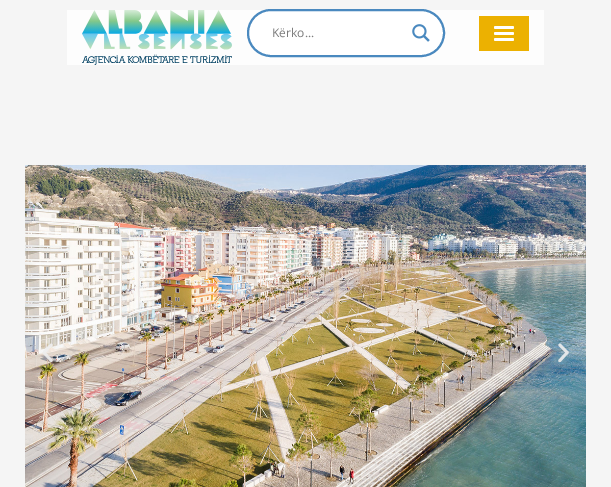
%!PS
<< /PageSize [611 487] >> setpagedevice
/roundrect { 5 dict begin { /r /h /w /y /x } { exch def } forall
  x r add y moveto x w add y 2 copy h add r arct x w add y h add x 1 index r arct
  x y h add x y r arct x y 2 copy exch w add exch r arct closepath end } def
/picture { 5 dict begin { /h /w /y /x /name } { exch def } forall
  gsave x y translate w h scale
  w h 8 [w 0 0 h 0 0] name (r) file false 3 colorimage grestore end } def
0 487 translate 1 -1 scale
4 setmiterlimit
0.961 setgray
0 0 611 487 rectfill
0.992 setgray
67 10 477 55 rectfill
(img1.rgb) 82 10 150 55 picture
1 setgray
248 10 196 46 23 roundrect gsave fill grestore
0.29 0.537 0.749 setrgbcolor
2 setlinewidth
stroke
/OpenSans-Regular [12 0 0 -12 0 0] selectfont
0.49 setgray
272 37 moveto (Kërko...) show
(img2.rgb) 412 24 18 18 picture
0.925 0.694 0.004 setrgbcolor
479 16 50 35 rectfill
1 setgray
494 26 20 3 1.5 roundrect fill
494 32 20 3 1.5 roundrect fill
494 38 20 3 1.5 roundrect fill
(img3.rgb) 25 165 561 322 picture
(img4.rgb) 43 343 10 20 picture
(img5.rgb) 558 343 11 20 picture
showpage
